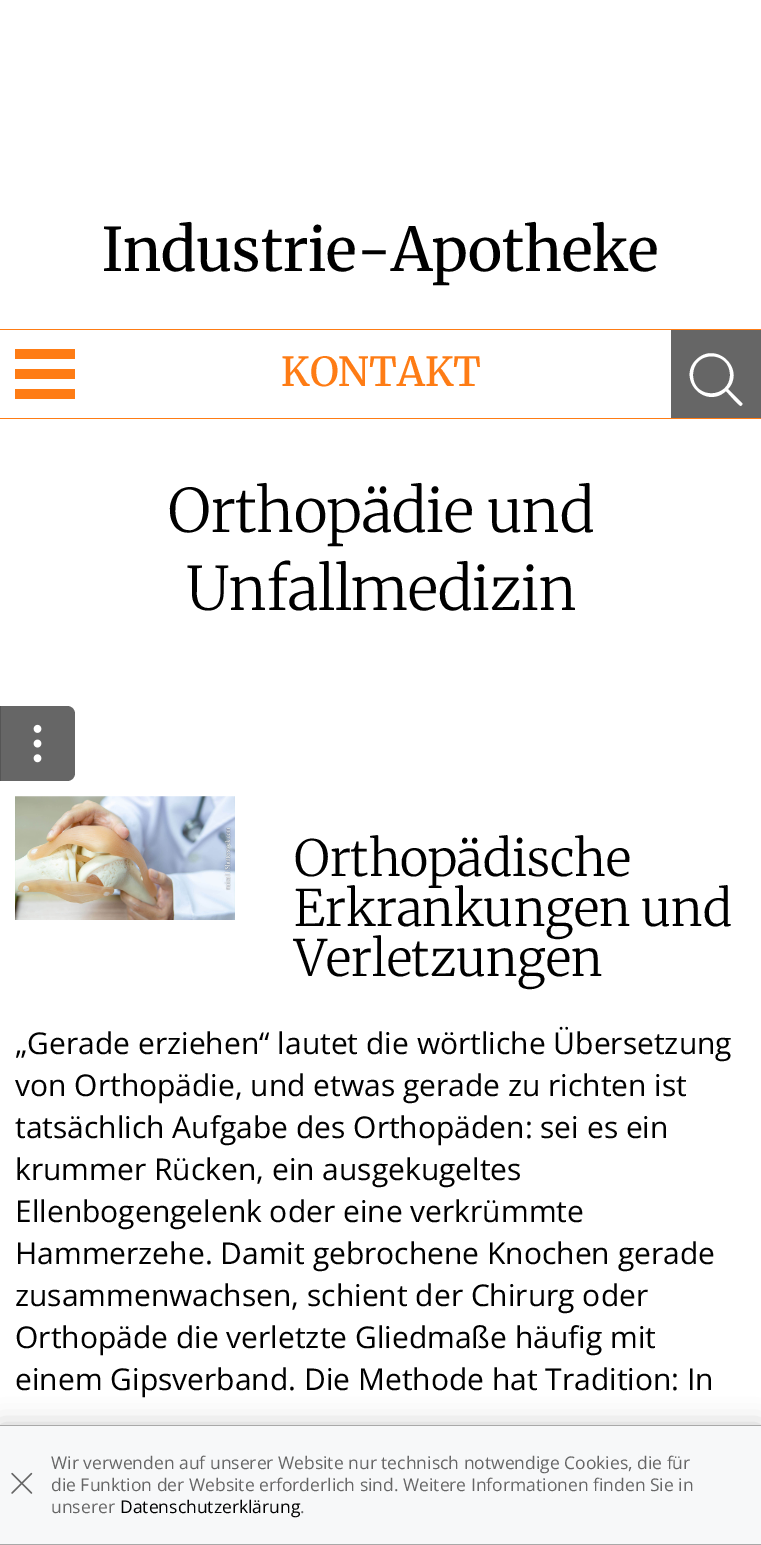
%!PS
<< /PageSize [761 1545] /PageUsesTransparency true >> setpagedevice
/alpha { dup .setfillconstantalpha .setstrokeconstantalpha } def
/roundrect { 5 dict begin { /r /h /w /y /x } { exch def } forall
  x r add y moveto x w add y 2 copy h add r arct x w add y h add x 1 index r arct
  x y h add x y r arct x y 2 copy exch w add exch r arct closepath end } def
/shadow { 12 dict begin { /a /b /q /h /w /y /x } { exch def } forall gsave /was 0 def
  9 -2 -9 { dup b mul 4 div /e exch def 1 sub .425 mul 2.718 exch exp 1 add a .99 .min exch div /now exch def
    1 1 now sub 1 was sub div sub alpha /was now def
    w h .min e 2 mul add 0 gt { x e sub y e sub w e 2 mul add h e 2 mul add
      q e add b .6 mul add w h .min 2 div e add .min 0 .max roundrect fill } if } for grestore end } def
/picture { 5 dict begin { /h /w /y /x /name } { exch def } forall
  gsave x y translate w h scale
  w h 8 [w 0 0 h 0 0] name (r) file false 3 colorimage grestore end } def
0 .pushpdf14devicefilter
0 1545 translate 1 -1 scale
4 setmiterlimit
1 setgray
0 0 761 1545 rectfill
/Merriweather-Regular [60 0 0 -60 0 0] selectfont
0 setgray
102 271 moveto (Industrie-Apotheke) show
0.996 0.486 0.082 setrgbcolor
0 329 761 1 rectfill
0 418 761 1 rectfill
15 369 60 10 rectfill
15 349 60 10 rectfill
15 389 60 10 rectfill
/Merriweather-Medium [40 0 0 -40 0 0] selectfont
281 386 moveto (KONTAKT) show
0.4 setgray
671 330 90 88 rectfill
1 setgray
newpath 742 403 moveto 728 389 lineto 746 369 716 340 696 360 curveto 677 379 705 410 726 391 curveto 728 393 739 406 741 406 curveto 742 405 743 404 742 403 curveto closepath 730 375 moveto 730 399 693 400 693 375 curveto 693 350 730 350 730 375 curveto closepath fill
/Merriweather-Light [60 0 0 -60 0 0] selectfont
0 setgray
168 532 moveto (Orthopädie und) show
186 610 moveto (Unfallmedizin) show
0.4 setgray
newpath -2 706 moveto 67 706 lineto 71.5 706 75 709.5 75 714 curveto 75 773 lineto 75 777.5 71.5 781 67 781 curveto -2 781 lineto closepath fill
0.333 setgray
0 706 1 75 rectfill
(img1.rgb) 33 724 9 39 picture
(img2.rgb) 15 796 220 124 picture
/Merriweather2-Light [50 0 0 -50 0 0] selectfont
0 setgray
294 876 moveto (Orthopädische) show
294 926 moveto (Erkrankungen und) show
294 976 moveto (Verletzungen) show
/OpenSans-Regular [30 0 0 -30 0 0] selectfont
15 1054 moveto („Gerade erziehen“ lautet die wörtliche Übersetzung) show
15 1096 moveto (von Orthopädie, und etwas gerade zu richten ist) show
15 1138 moveto (tatsächlich Aufgabe des Orthopäden: sei es ein) show
15 1180 moveto (krummer Rücken, ein ausgekugeltes) show
15 1222 moveto (Ellenbogengelenk oder eine verkrümmte) show
15 1264 moveto (Hammerzehe. Damit gebrochene Knochen gerade) show
15 1306 moveto (zusammenwachsen, schient der Chirurg oder) show
15 1348 moveto (Orthopäde die verletzte Gliedmaße häufig mit) show
15 1390 moveto (einem Gipsverband. Die Methode hat Tradition: In) show
0 1425 761 120 0 12.5 0.2 shadow
0.969 0.973 0.976 setrgbcolor
0 1426 761 118 rectfill
0.663 setgray
0 1425 761 1 rectfill
0 1544 761 1 rectfill
(img3.rgb) 11 1472 22 22 picture
/OpenSans-Regular [17.5 0 0 -17.5 0 0] selectfont
0.4 setgray
51 1469 moveto (Wir verwenden auf unserer Website nur technisch notwendige Cookies, die für) show
51 1491 moveto (die Funktion der Website erforderlich sind. Weitere Informationen finden Sie in) show
51 1513 moveto (unserer) show
0 setgray
120 1513 moveto (Datenschutzerklärung) show
0.4 setgray
300 1513 moveto (.) show
.poppdf14devicefilter showpage
